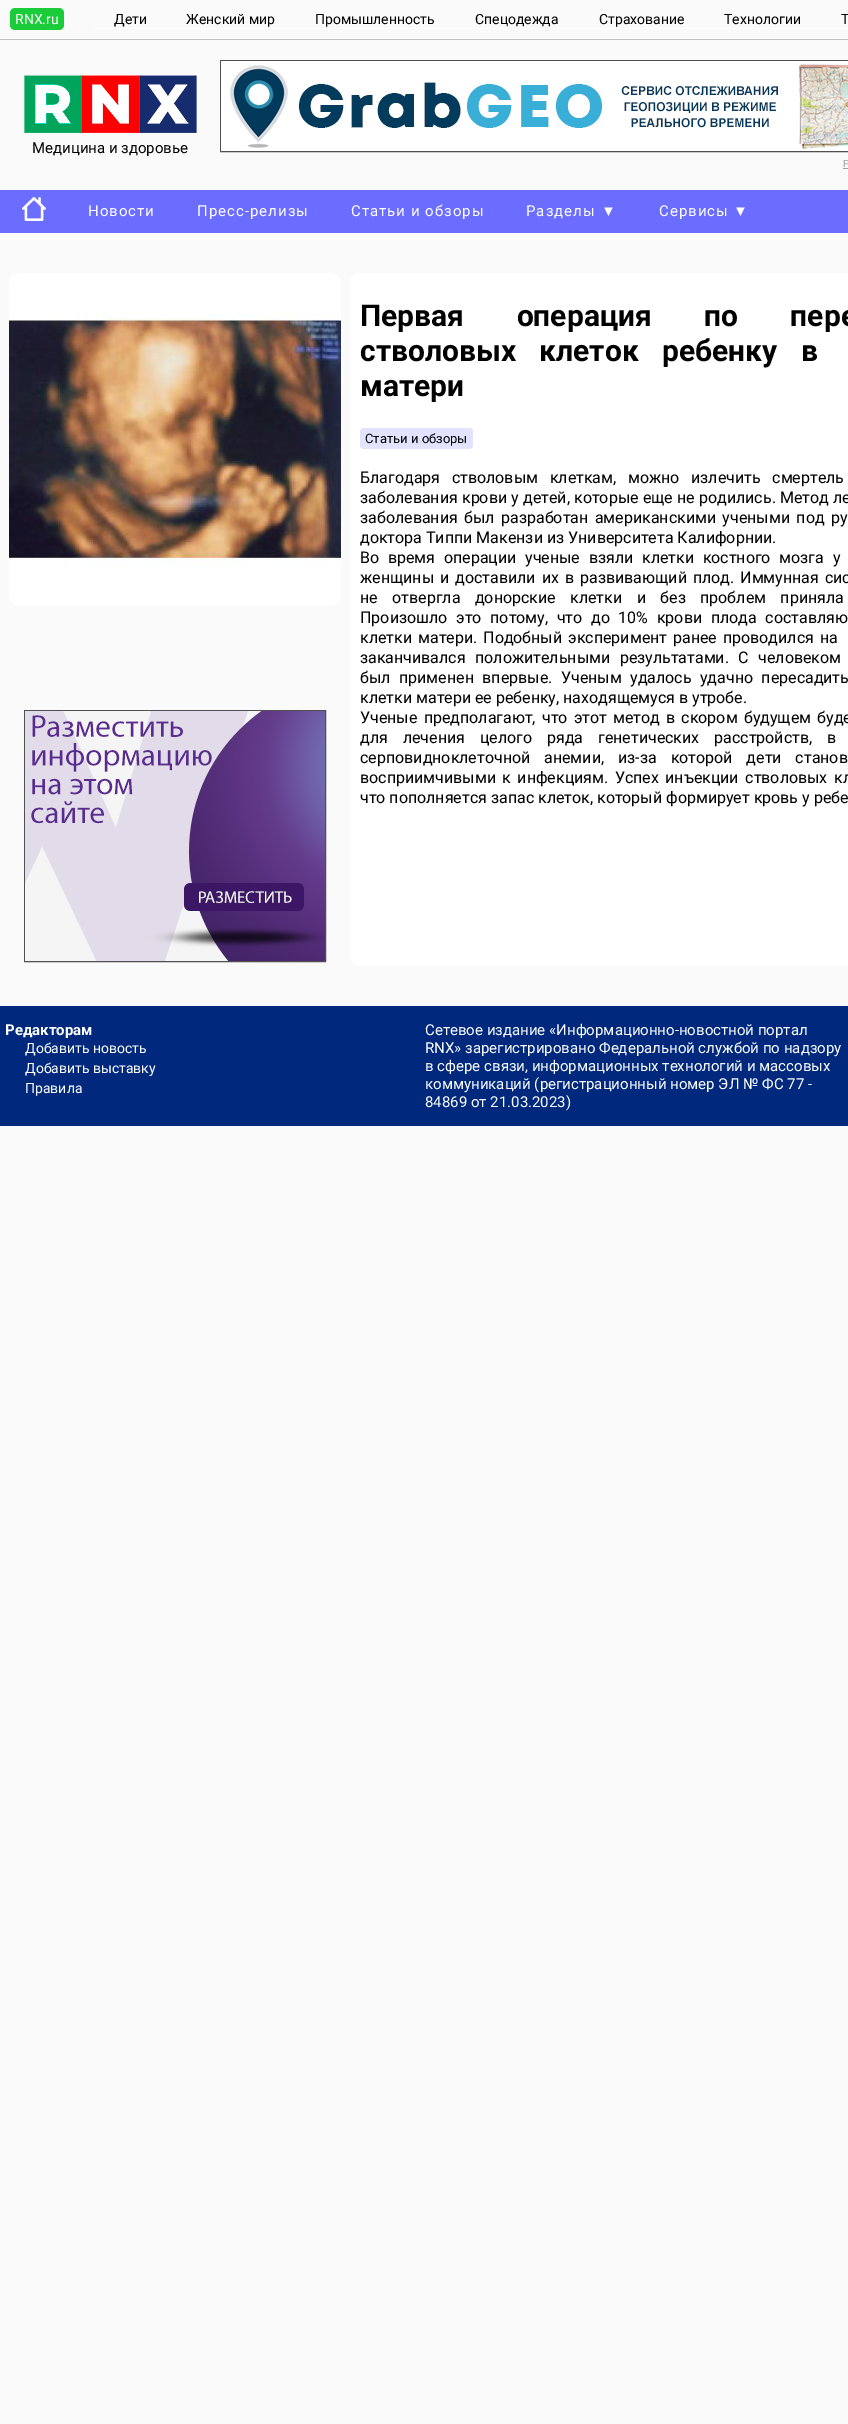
%!PS
<< /PageSize [848 2424] >> setpagedevice
/roundrect { 5 dict begin { /r /h /w /y /x } { exch def } forall
  x r add y moveto x w add y 2 copy h add r arct x w add y h add x 1 index r arct
  x y h add x y r arct x y 2 copy exch w add exch r arct closepath end } def
/picture { 5 dict begin { /h /w /y /x /name } { exch def } forall
  gsave x y translate w h scale
  w h 8 [w 0 0 h 0 0] name (r) file false 3 colorimage grestore end } def
0 2424 translate 1 -1 scale
4 setmiterlimit
0.98 setgray
0 0 848 2424 rectfill
0.753 setgray
0 39 848 1 rectfill
0.106 0.8 0.227 setrgbcolor
10 8 54 22 5 roundrect fill
/Roboto-Regular [14 0 0 -14 0 0] selectfont
1 setgray
15 24 moveto (RNX.ru) show
94 28 754 1 rectfill
0 setgray
114 24 moveto (Дети) show
186 24 moveto (Женский мир) show
315 24 moveto (Промышленность) show
475 24 moveto (Спецодежда) show
599 24 moveto (Страхование) show
724 24 moveto (Технологии) show
841 24 moveto (Т) show
(img1.rgb) 24 75 173 58 picture
/Roboto-Regular [15 0 0 -15 0 0] selectfont
32 153 moveto (Медицина и здоровье) show
0.314 setgray
220.5 60.5 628 91 rectstroke
(img2.rgb) 221 61 627 90 picture
/LiberationSans-Regular [10 0 0 -10 0 0] selectfont
0.62 setgray
843 167 moveto (Р) show
843 168 5 1 rectfill
0.416 0.427 1 setrgbcolor
0 190 848 43 rectfill
(img3.rgb) 22 197 24 24 picture
/Roboto-Regular [15 0 0 -15 0 0] selectfont
1 setgray
88 216 moveto 1 0 (Новости) ashow
197 216 moveto 1 0 (Пресс-релизы) ashow
351 216 moveto 1 0 (Статьи и обзоры) ashow
526 216 moveto 1 0 (Разделы) ashow
/LiberationSerif-Regular [15 0 0 -15 0 0] selectfont
601 216 moveto 1 0 (▼) ashow
/Roboto-Regular [15 0 0 -15 0 0] selectfont
659 216 moveto 1 0 (Сервисы) ashow
/LiberationSerif-Regular [15 0 0 -15 0 0] selectfont
733 216 moveto 1 0 (▼) ashow
(img4.rgb) 9 273 332 333 picture
0.314 setgray
24.5 710.5 301 251 rectstroke
(img5.rgb) 25 711 300 250 picture
1 setgray
350 273 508 693 10 roundrect fill
/Roboto-Bold [30 0 0 -30 0 0] selectfont
0 setgray
360 326 moveto 45 0 32 (Первая операция по пере) widthshow
360 361 moveto 16 0 32 (стволовых клеток ребенку в) widthshow
360 396 moveto (матери) show
0.886 0.89 1 setrgbcolor
360 428 113 21 4 roundrect fill
/Roboto-Regular [13 0 0 -13 0 0] selectfont
0 setgray
365 443 moveto (Статьи и обзоры) show
/Roboto-Regular [16 0 0 -16 0 0] selectfont
360 483 moveto 7.75 0 32 (Благодаря стволовым клеткам, можно излечить смертель) widthshow
360 503 moveto 0.25 0 32 (заболевания крови у детей, которые еще не родились. Метод ле) widthshow
360 523 moveto 2.5 0 32 (заболевания был разработан американскими учеными под ру) widthshow
360 543 moveto (доктора Типпи Макензи из Университета Калифорнии.) show
360 563 moveto 4.75 0 32 (Во время операции ученые взяли клетки костного мозга у) widthshow
360 583 moveto 2 0 32 (женщины и доставили их в развивающий плод. Иммунная сис) widthshow
360 603 moveto 10.5 0 32 (не отвергла донорские клетки и без проблем приняла) widthshow
360 623 moveto 4.75 0 32 (Произошло это потому, что до 10% крови плода составляю) widthshow
360 643 moveto 2 0 32 (клетки матери. Подобный эксперимент ранее проводился на) widthshow
360 663 moveto 5.5 0 32 (заканчивался положительными результатами. С человеком) widthshow
360 683 moveto 4.5 0 32 (был применен впервые. Ученым удалось удачно пересадить) widthshow
360 703 moveto (клетки матери ее ребенку, находящемуся в утробе.) show
360 723 moveto 2.25 0 32 (Ученые предполагают, что этот метод в скором будущем буде) widthshow
360 743 moveto 11 0 32 (для лечения целого ряда генетических расстройств, в) widthshow
360 763 moveto 10 0 32 (серповидноклеточной анемии, из-за которой дети станов) widthshow
360 783 moveto 2.5 0 32 (восприимчивыми к инфекциям. Успех инъекции стволовых кл) widthshow
360 803 moveto (что пополняется запас клеток, который формирует кровь у ребе) show
0 0.161 0.494 setrgbcolor
0 1006 848 120 rectfill
/Roboto-Bold [15 0 0 -15 0 0] selectfont
1 setgray
5 1035 moveto (Редакторам) show
/Roboto-Regular [14 0 0 -14 0 0] selectfont
25 1053 moveto (Добавить новость) show
25 1073 moveto (Добавить выставку) show
25 1093 moveto (Правила) show
/Roboto-Regular [15 0 0 -15 0 0] selectfont
425 1035 moveto (Сетевое издание «Информационно-новостной портал) show
425 1053 moveto (RNX» зарегистрировано Федеральной службой по надзору) show
425 1071 moveto (в сфере связи, информационных технологий и массовых) show
425 1089 moveto (коммуникаций \(регистрационный номер ЭЛ № ФС 77 -) show
425 1107 moveto (84869 от 21.03.2023\)) show
showpage
